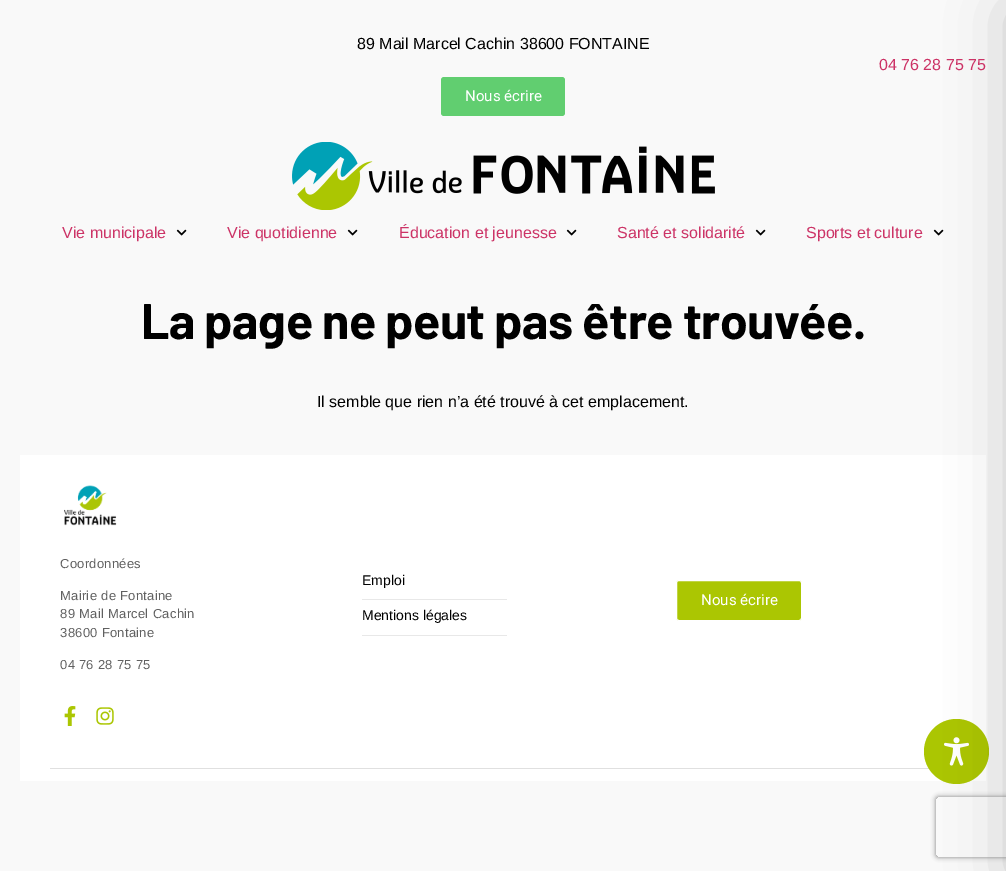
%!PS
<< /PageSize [1006 871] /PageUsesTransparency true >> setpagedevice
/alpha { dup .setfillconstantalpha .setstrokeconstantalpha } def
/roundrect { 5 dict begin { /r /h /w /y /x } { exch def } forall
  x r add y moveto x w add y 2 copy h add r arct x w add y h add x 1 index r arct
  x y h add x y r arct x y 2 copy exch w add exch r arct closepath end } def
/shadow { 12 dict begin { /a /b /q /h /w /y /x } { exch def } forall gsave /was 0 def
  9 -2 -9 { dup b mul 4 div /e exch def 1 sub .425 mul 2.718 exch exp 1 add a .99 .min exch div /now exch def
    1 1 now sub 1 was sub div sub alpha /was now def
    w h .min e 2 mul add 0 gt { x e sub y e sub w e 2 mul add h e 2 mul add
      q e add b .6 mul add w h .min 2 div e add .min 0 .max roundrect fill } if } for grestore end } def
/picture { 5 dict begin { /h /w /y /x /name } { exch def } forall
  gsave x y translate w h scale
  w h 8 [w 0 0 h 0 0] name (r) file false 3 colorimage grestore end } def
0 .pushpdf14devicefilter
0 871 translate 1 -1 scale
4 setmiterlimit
0.976 setgray
0 0 1006 871 rectfill
(img2.rgb) 933 229 11 7 picture
1 setgray
20 455 966 326 rectfill
0.878 setgray
50 768 880 1 rectfill
0.671 0.776 0.008 setrgbcolor
newpath 956.5 751.5 32.5 0 360 arc closepath fill
(img6.rgb) 944 737 25 29 picture
0 setgray
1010 10 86 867 0 30 0.2 shadow
/LiberationSans-Regular [16 0 0 -16 0 0] selectfont
357 49 moveto (89 Mail Marcel Cachin 38600 FONTAINE) show
0.8 0.2 0.4 setrgbcolor
879 70 moveto (04 76 28 75 75) show
0.38 0.808 0.439 setrgbcolor
441 77 124 39 3 roundrect fill
/Roboto-Regular [15 0 0 -15 0 0] selectfont
1 setgray
465 101 moveto (Nous écrire) show
(img1.rgb) 292 142 423 68 picture
/LiberationSans-Regular [16 0 0 -16 0 0] selectfont
0.8 0.2 0.4 setrgbcolor
62 238 moveto (Vie municipale) show
(img2.rgb) 176 229 11 7 picture
227 238 moveto (Vie quotidienne) show
(img2.rgb) 347 229 11 7 picture
399 238 moveto (Éducation et jeunesse) show
(img2.rgb) 566 229 11 7 picture
617 238 moveto (Santé et solidarité) show
(img2.rgb) 755 229 11 7 picture
806 238 moveto (Sports et culture) show
/Barlow-Bold [50 0 0 -50 0 0] selectfont
0 setgray
141 339 moveto -0.5 0 (La page ne peut pas être trouvée.) ashow
/LiberationSans-Regular [16 0 0 -16 0 0] selectfont
317 407 moveto (Il semble que rien n’a été trouvé à cet emplacement.) show
(img3.rgb) 64 485 53 41 picture
/LiberationSans-Regular [13 0 0 -13 0 0] selectfont
0.376 setgray
60 568 moveto 0.3 0 (Coordonnées) ashow
60 600 moveto 0.3 0 (Mairie de Fontaine) ashow
60 618 moveto 0.3 0 (89 Mail Marcel Cachin) ashow
60 637 moveto 0.3 0 (38600 Fontaine) ashow
60 669 moveto 0.3 0 (04 76 28 75 75) ashow
(img4.rgb) 64 706 12 20 picture
(img5.rgb) 96 707 18 18 picture
0.91 setgray
362 599 145 1 rectfill
/LiberationSans-Regular [14 0 0 -14 0 0] selectfont
0 setgray
362 585 moveto (Emploi) show
0.91 setgray
362 635 145 1 rectfill
0 setgray
362 620 moveto (Mentions légales) show
0.671 0.776 0.008 setrgbcolor
676.5 580.5 125 40 2.5 roundrect gsave fill grestore
1 setgray
stroke
/Roboto-Regular [15 0 0 -15 0 0] selectfont
701 605 moveto (Nous écrire) show
gsave
newpath 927 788 moveto 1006 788 lineto 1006 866 lineto 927 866 lineto closepath 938 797 moveto 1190 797 lineto 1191 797 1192 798 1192 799 curveto 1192 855 lineto 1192 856 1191 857 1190 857 curveto 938 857 lineto 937 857 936 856 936 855 curveto 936 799 lineto 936 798 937 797 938 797 curveto closepath eoclip newpath
0.502 setgray
936 797 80 60 2 2.5 1 shadow
grestore
.poppdf14devicefilter showpage
